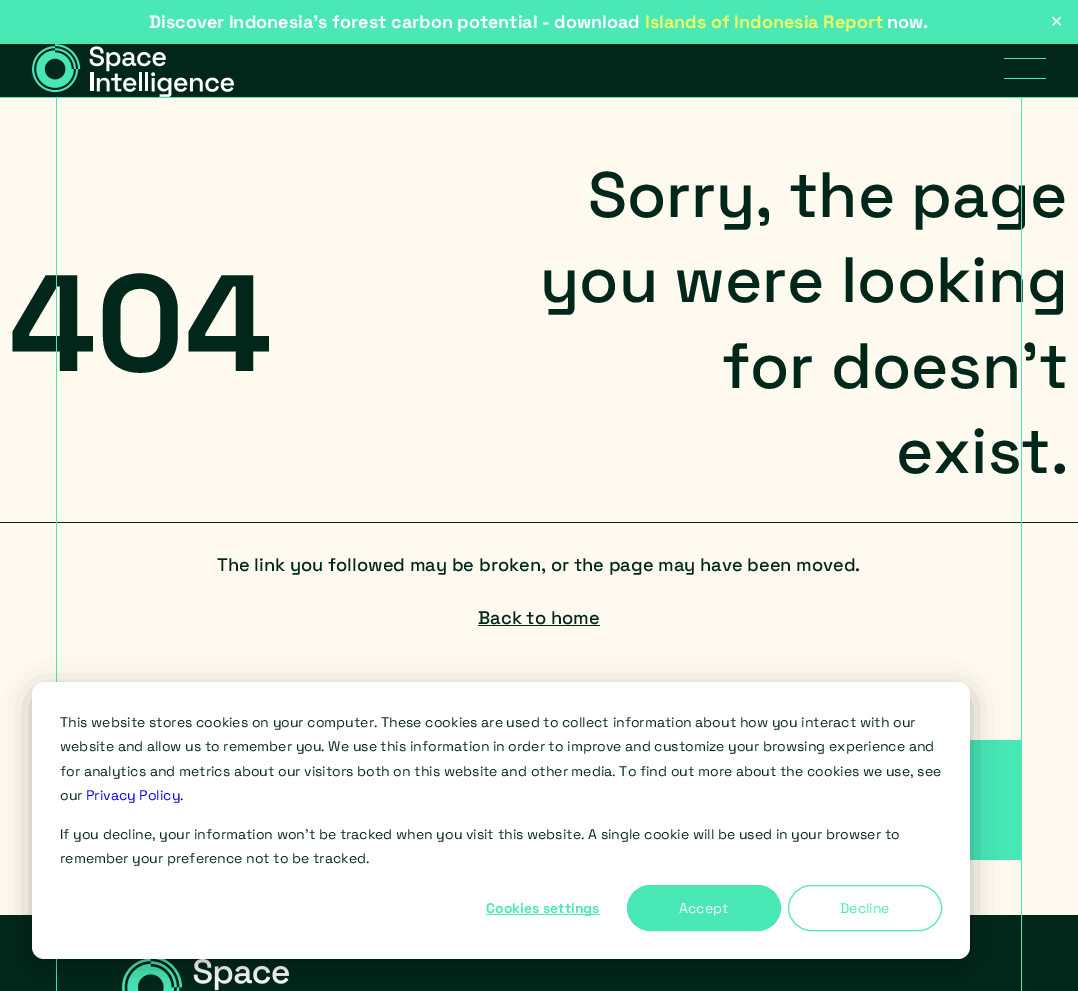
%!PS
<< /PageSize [1078 991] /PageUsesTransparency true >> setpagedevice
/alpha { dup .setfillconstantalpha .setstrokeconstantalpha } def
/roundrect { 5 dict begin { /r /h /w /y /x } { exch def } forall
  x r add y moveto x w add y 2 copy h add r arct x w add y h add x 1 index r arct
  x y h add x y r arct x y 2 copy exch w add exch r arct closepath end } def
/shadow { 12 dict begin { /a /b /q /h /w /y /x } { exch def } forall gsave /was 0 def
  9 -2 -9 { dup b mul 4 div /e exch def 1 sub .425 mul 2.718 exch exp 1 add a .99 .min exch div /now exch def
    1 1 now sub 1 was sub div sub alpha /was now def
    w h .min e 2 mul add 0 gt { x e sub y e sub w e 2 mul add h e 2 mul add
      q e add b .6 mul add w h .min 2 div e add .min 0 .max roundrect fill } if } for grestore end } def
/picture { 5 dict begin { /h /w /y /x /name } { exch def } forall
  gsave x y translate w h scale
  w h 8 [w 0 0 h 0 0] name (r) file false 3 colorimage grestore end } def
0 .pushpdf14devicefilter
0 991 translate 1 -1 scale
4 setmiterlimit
1 0.98 0.941 setrgbcolor
0 0 1078 991 rectfill
0.29 0.91 0.71 setrgbcolor
0 0 1078 44 rectfill
/SpaceGrotesk-Bold [18 0 0 -18 0 0] selectfont
1 setgray
149 28 moveto (Discover Indonesia's forest carbon potential - download) show
0.929 0.988 0.412 setrgbcolor
645 28 moveto (Islands of Indonesia Report) show
1 setgray
887 28 moveto (now.) show
/DejaVuSans-Regular [16 0 0 -16 0 0] selectfont
1050 27 moveto (✕) show
0.004 0.153 0.102 setrgbcolor
0 44 1078 53 rectfill
0.282 0.906 0.714 setrgbcolor
0 97 1078 1 rectfill
(img1.rgb) 32 44 202 53 picture
1004 58 42 1 rectfill
1004 78 42 1 rectfill
0.004 0.153 0.102 setrgbcolor
0 522 1078 1 rectfill
/SpaceGrotesk-Bold [137 0 0 -137 0 0] selectfont
9 371 moveto (404) show
0 915 1078 76 rectfill
0.282 0.906 0.714 setrgbcolor
56 98 1 893 rectfill
/SpaceGrotesk-Medium [64 0 0 -64 0 0] selectfont
0.004 0.153 0.102 setrgbcolor
588 217 moveto (Sorry, the page) show
540 302 moveto (you were looking) show
722 388 moveto (for doesn't) show
896 473 moveto (exist.) show
0.282 0.906 0.714 setrgbcolor
1021 98 1 893 rectfill
/SpaceGrotesk-Medium [18.3 0 0 -18.3 0 0] selectfont
0.004 0.153 0.102 setrgbcolor
217 571 moveto (The link you followed may be broken, or the page may have been moved.) show
478 624 moveto (Back to home) show
478 625 122 1 rectfill
0.282 0.906 0.714 setrgbcolor
970 740 51 120 rectfill
(img2.rgb) 122 959 167 32 picture
0 setgray
32 690 938 277 12 14 0.28 shadow
1 setgray
32 682 938 277 12 roundrect fill
/SpaceGrotesk-Regular [14 0 0 -14 0 0] selectfont
0.004 0.153 0.102 setrgbcolor
60 727 moveto (This website stores cookies on your computer. These cookies are used to collect information about how you interact with our) show
60 751 moveto (website and allow us to remember you. We use this information in order to improve and customize your browsing experience and) show
60 776 moveto (for analytics and metrics about our visitors both on this website and other media. To find out more about the cookies we use, see) show
60 800 moveto (our) show
0 0 0.933 setrgbcolor
86 800 moveto (Privacy Policy) show
0.004 0.153 0.102 setrgbcolor
180 800 moveto (.) show
60 839 moveto (If you decline, your information won’t be tracked when you visit this website. A single cookie will be used in your browser to) show
60 863 moveto (remember your preference not to be tracked.) show
0.29 0.91 0.71 setrgbcolor
486 914 114 1 rectfill
/SpaceGrotesk-Bold [14 0 0 -14 0 0] selectfont
486 913 moveto (Cookies settings) show
627.5 885.5 153 45 22.5 roundrect gsave fill grestore
stroke
/SpaceGrotesk-Regular [14 0 0 -14 0 0] selectfont
1 setgray
679 913 moveto (Accept) show
0.29 0.91 0.71 setrgbcolor
788.5 885.5 153 45 22.5 roundrect stroke
840 913 moveto (Decline) show
.poppdf14devicefilter showpage
